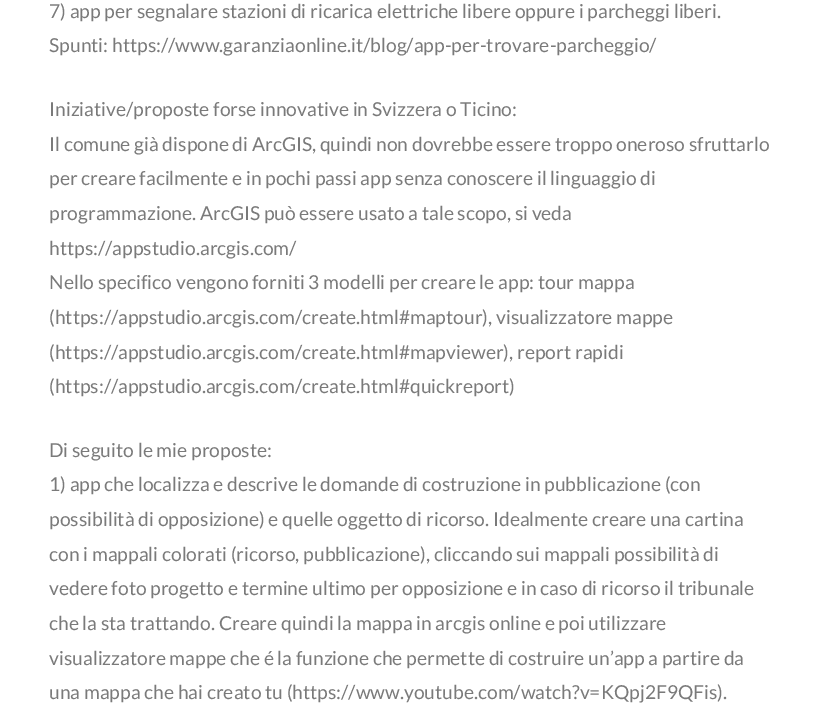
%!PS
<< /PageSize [819 716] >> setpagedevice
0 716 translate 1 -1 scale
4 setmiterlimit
1 setgray
0 0 819 716 rectfill
/Lato-Regular [19.25 0 0 -19.25 0 0] selectfont
0.478 setgray
49 18 moveto (7\) app per segnalare stazioni di ricarica elettriche libere oppure i parcheggi liberi.) show
49 52 moveto (Spunti: https://www.garanziaonline.it/blog/app-per-trovare-parcheggio/) show
49 116 moveto (Iniziative/proposte forse innovative in Svizzera o Ticino:) show
49 151 moveto (Il comune già dispone di ArcGIS, quindi non dovrebbe essere troppo oneroso sfruttarlo) show
49 185 moveto (per creare facilmente e in pochi passi app senza conoscere il linguaggio di) show
49 220 moveto (programmazione. ArcGIS può essere usato a tale scopo, si veda) show
49 255 moveto (https://appstudio.arcgis.com/) show
49 289 moveto (Nello specifico vengono forniti 3 modelli per creare le app: tour mappa) show
49 324 moveto (\(https://appstudio.arcgis.com/create.html#maptour\), visualizzatore mappe) show
49 359 moveto (\(https://appstudio.arcgis.com/create.html#mapviewer\), report rapidi) show
49 393 moveto (\(https://appstudio.arcgis.com/create.html#quickreport\)) show
49 457 moveto (Di seguito le mie proposte:) show
49 491 moveto (1\) app che localizza e descrive le domande di costruzione in pubblicazione \(con) show
49 526 moveto (possibilità di opposizione\) e quelle oggetto di ricorso. Idealmente creare una cartina) show
49 561 moveto (con i mappali colorati \(ricorso, pubblicazione\), cliccando sui mappali possibilità di) show
49 595 moveto (vedere foto progetto e termine ultimo per opposizione e in caso di ricorso il tribunale) show
49 630 moveto (che la sta trattando. Creare quindi la mappa in arcgis online e poi utilizzare) show
49 665 moveto (visualizzatore mappe che é la funzione che permette di costruire un’app a partire da) show
49 699 moveto (una mappa che hai creato tu \(https://www.youtube.com/watch?v=KQpj2F9QFis\).) show
showpage
